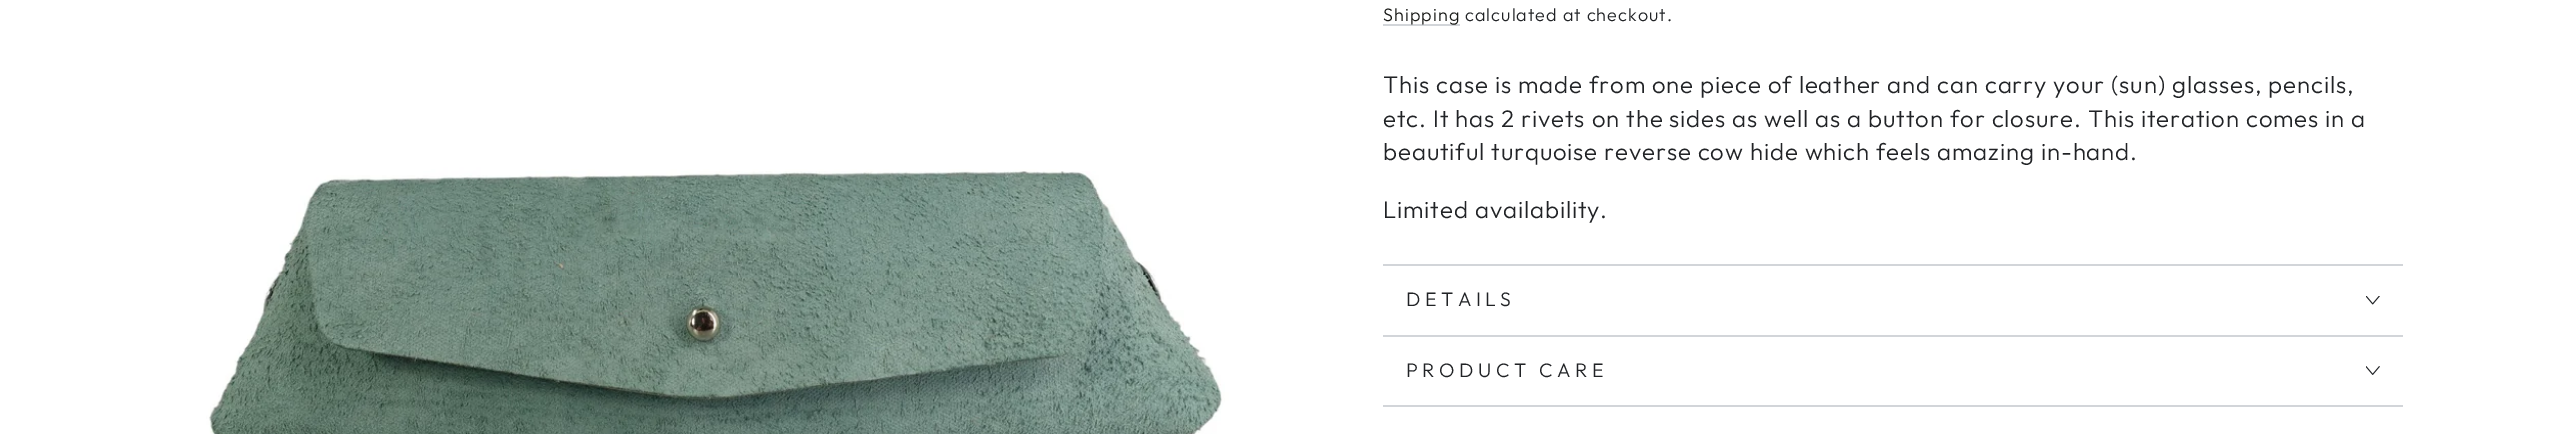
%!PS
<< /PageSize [2555 434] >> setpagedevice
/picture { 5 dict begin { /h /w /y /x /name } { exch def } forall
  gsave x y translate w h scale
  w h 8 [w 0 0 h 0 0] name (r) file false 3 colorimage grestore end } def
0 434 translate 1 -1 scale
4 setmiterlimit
1 setgray
0 0 2555 434 rectfill
(img1.rgb) 153 0 1125 434 picture
0.824 0.835 0.851 setrgbcolor
1383 24 77 2 rectfill
/Outfit-Light [18 0 0 -18 0 0] selectfont
0.102 0.106 0.094 setrgbcolor
1383 21 moveto 1.05 0 (Shipping) ashow
0.129 0.137 0.149 setrgbcolor
1465 21 moveto 1.05 0 (calculated at checkout.) ashow
/Outfit-Light [24 0 0 -24 0 0] selectfont
1383 93 moveto 0.9 0 (This case is made from one piece of leather and can carry your \(sun\) glasses, pencils,) ashow
1383 127 moveto 0.9 0 (etc. It has 2 rivets on the sides as well as a button for closure. This iteration comes in a) ashow
1383 160 moveto 0.9 0 (beautiful turquoise reverse cow hide which feels amazing in-hand.) ashow
1383 218 moveto 0.9 0 (Limited availability.) ashow
0.824 0.835 0.851 setrgbcolor
1383 264 1020 2 rectfill
1383 335 1020 2 rectfill
/Outfit-Light [19.5 0 0 -19.5 0 0] selectfont
0.129 0.137 0.149 setrgbcolor
1406 306 moveto 4.5 0 (DETAILS) ashow
(img2.rgb) 2366 296 14 9 picture
0.824 0.835 0.851 setrgbcolor
1383 405 1020 2 rectfill
0.129 0.137 0.149 setrgbcolor
1406 377 moveto 4.5 0 (PRODUCT CARE) ashow
(img3.rgb) 2366 366 14 9 picture
showpage
